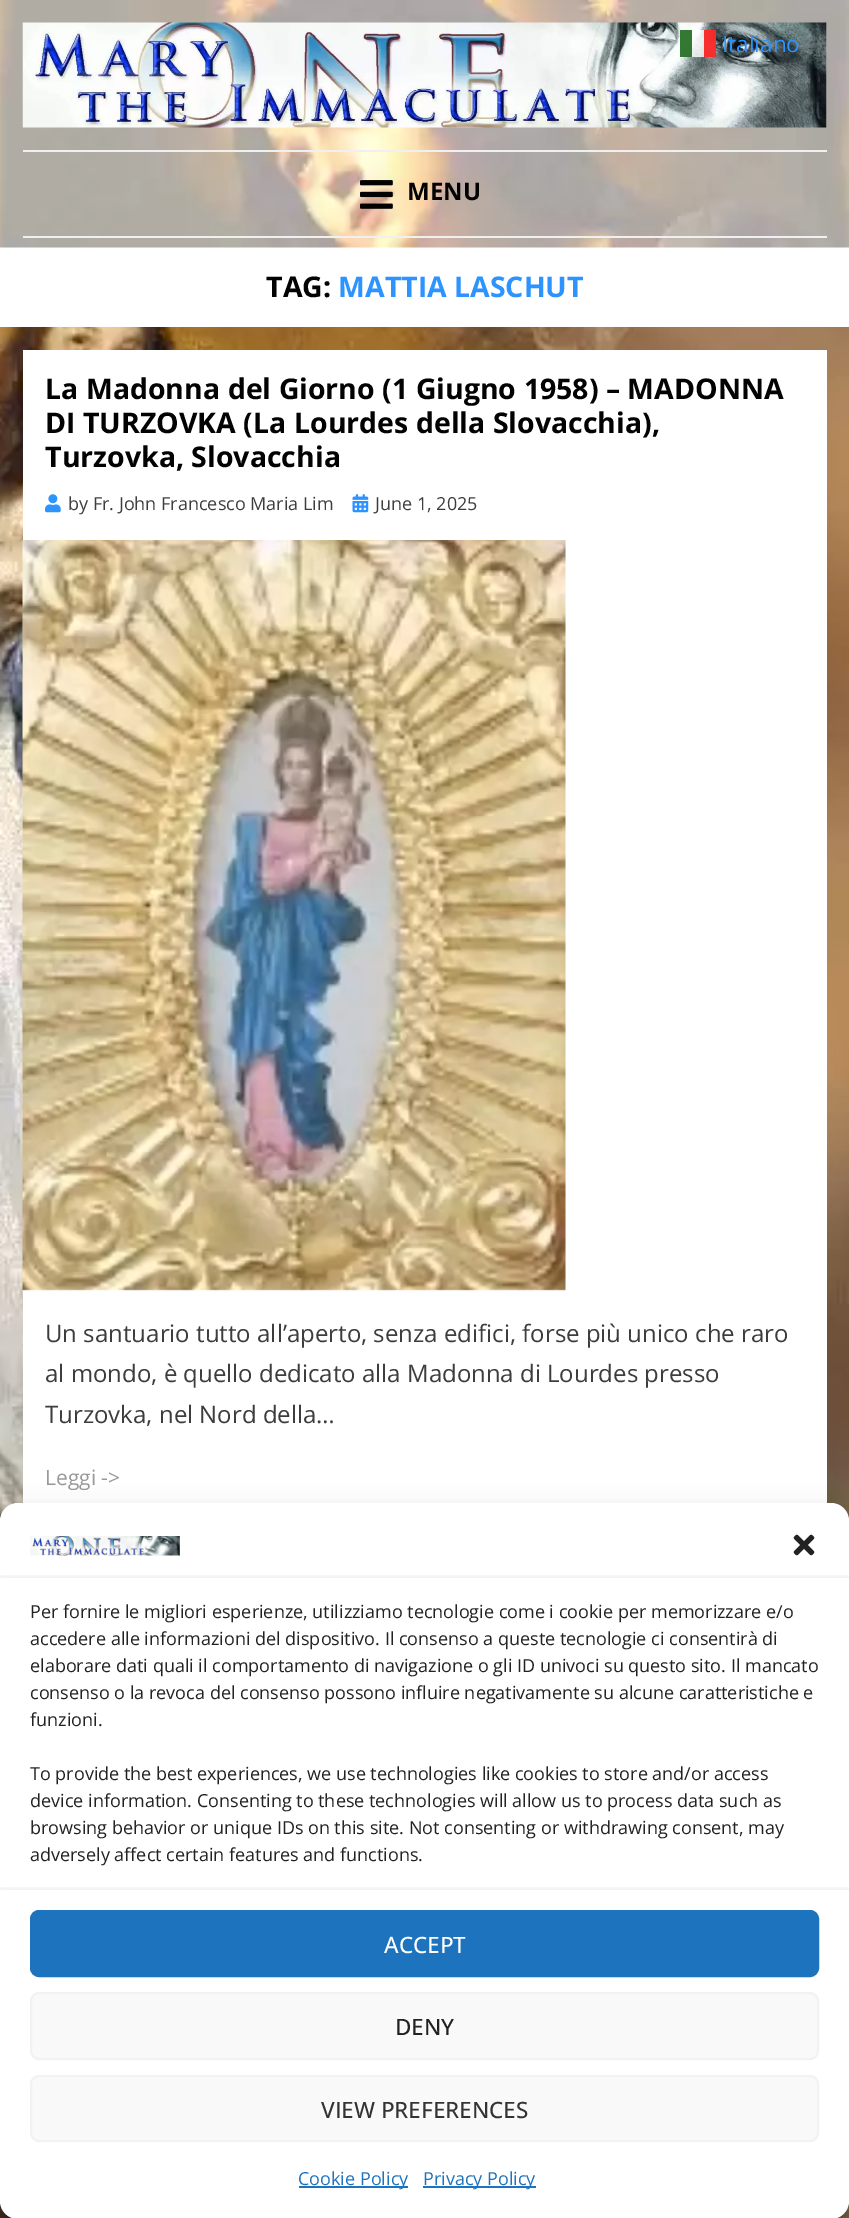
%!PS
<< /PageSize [849 2218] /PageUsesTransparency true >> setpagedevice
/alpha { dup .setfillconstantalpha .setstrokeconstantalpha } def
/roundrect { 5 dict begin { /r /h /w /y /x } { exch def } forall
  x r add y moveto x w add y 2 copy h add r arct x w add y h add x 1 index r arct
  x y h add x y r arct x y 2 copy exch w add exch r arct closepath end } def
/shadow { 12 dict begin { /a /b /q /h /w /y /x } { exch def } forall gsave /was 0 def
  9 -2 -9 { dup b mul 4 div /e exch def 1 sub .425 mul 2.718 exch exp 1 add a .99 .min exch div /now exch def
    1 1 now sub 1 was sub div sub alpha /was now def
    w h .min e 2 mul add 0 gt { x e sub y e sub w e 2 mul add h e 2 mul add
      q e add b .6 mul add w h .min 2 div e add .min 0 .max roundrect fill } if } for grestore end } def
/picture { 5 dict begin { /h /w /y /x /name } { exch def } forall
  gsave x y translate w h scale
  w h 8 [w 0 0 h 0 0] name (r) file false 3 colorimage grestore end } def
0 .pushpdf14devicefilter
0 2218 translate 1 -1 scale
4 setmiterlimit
1 setgray
0 0 849 2218 rectfill
(img1.rgb) 0 327 849 1891 picture
(img2.rgb) 0 0 849 248 picture
(img3.rgb) 22 22 805 106 picture
/OpenSans-Regular [22.5 0 0 -22.5 0 0] selectfont
0.176 0.576 1 setrgbcolor
722 52 moveto (Italiano) show
0.8 alpha
1 setgray
680 30 36 27 rectfill
0 0.341 0 setrgbcolor
680 30 12 27 rectfill
0.988 0 0 setrgbcolor
704 30 12 27 rectfill
1 alpha
0.941 setgray
23 150 804 2 rectfill
23 236 804 2 rectfill
(img4.rgb) 360 180 33 29 picture
/OpenSans-Bold [24 0 0 -24 0 0] selectfont
0.008 setgray
407 200 moveto (MENU) show
/OpenSans-Bold [28.5 0 0 -28.5 0 0] selectfont
266 297 moveto (TAG:) show
0.176 0.576 1 setrgbcolor
338 297 moveto (MATTIA LASCHUT) show
1 setgray
23 350 804 1153 rectfill
0.008 setgray
45 399 moveto (La Madonna del Giorno \(1 Giugno 1958\) – MADONNA) show
45 433 moveto (DI TURZOVKA \(La Lourdes della Slovacchia\),) show
45 467 moveto (Turzovka, Slovacchia) show
(img5.rgb) 45 494 16 19 picture
/OpenSans-Regular [18 0 0 -18 0 0] selectfont
0.239 setgray
68 510 moveto (by Fr. John Francesco Maria Lim) show
(img6.rgb) 352 494 17 19 picture
375 510 moveto (June 1, 2025) show
(img7.rgb) 22 540 544 751 picture
/OpenSans-Regular [24 0 0 -24 0 0] selectfont
45 1342 moveto (Un santuario tutto all’aperto, senza edifici, forse più unico che raro) show
45 1382 moveto (al mondo, è quello dedicato alla Madonna di Lourdes presso) show
45 1423 moveto (Turzovka, nel Nord della…) show
/OpenSans-Regular [21 0 0 -21 0 0] selectfont
0.6 setgray
45 1485 moveto (Leggi ->) show
0 setgray
0 1512 849 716 18 4.5 0.23 shadow
0 1518 849 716 18 15 0.19 shadow
1 setgray
0 1503 849 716 18 roundrect fill
(img8.rgb) 30 1536 150 20 picture
(img9.rgb) 793 1534 22 22 picture
gsave
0 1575 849 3 rectclip
0 setgray
0 1575 849 5 0 2 0.05 shadow
grestore
/OpenSans-Regular [18 0 0 -18 0 0] selectfont
0.133 setgray
30 1618 moveto (Per fornire le migliori esperienze, utilizziamo tecnologie come i cookie per memorizzare e/o) show
30 1645 moveto (accedere alle informazioni del dispositivo. Il consenso a queste tecnologie ci consentirà di) show
30 1672 moveto (elaborare dati quali il comportamento di navigazione o gli ID univoci su questo sito. Il mancato) show
30 1699 moveto (consenso o la revoca del consenso possono influire negativamente su alcune caratteristiche e) show
30 1726 moveto (funzioni.) show
30 1780 moveto (To provide the best experiences, we use technologies like cookies to store and/or access) show
30 1807 moveto (device information. Consenting to these technologies will allow us to process data such as) show
30 1834 moveto (browsing behavior or unique IDs on this site. Not consenting or withdrawing consent, may) show
30 1861 moveto (adversely affect certain features and functions.) show
gsave
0 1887 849 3 rectclip
0 setgray
0 1887 849 5 0 2 0.05 shadow
grestore
0.118 0.451 0.745 setrgbcolor
31 1911 787 65 8 roundrect gsave fill grestore
2 setlinewidth
stroke
/OpenSans-Medium [22.5 0 0 -22.5 0 0] selectfont
1 setgray
384 1953 moveto (ACCEPT) show
0.976 setgray
31 1993 787 66 8 roundrect gsave fill grestore
0.949 setgray
stroke
0.133 setgray
395 2035 moveto (DENY) show
0.976 setgray
31 2076 787 65 8 roundrect gsave fill grestore
0.949 setgray
stroke
0.2 setgray
321 2118 moveto (VIEW PREFERENCES) show
0.118 0.451 0.745 setrgbcolor
299 2186 109 2 rectfill
/OpenSans-Regular [18 0 0 -18 0 0] selectfont
298 2185 moveto (Cookie Policy) show
423 2186 113 2 rectfill
423 2185 moveto (Privacy Policy) show
.poppdf14devicefilter showpage
